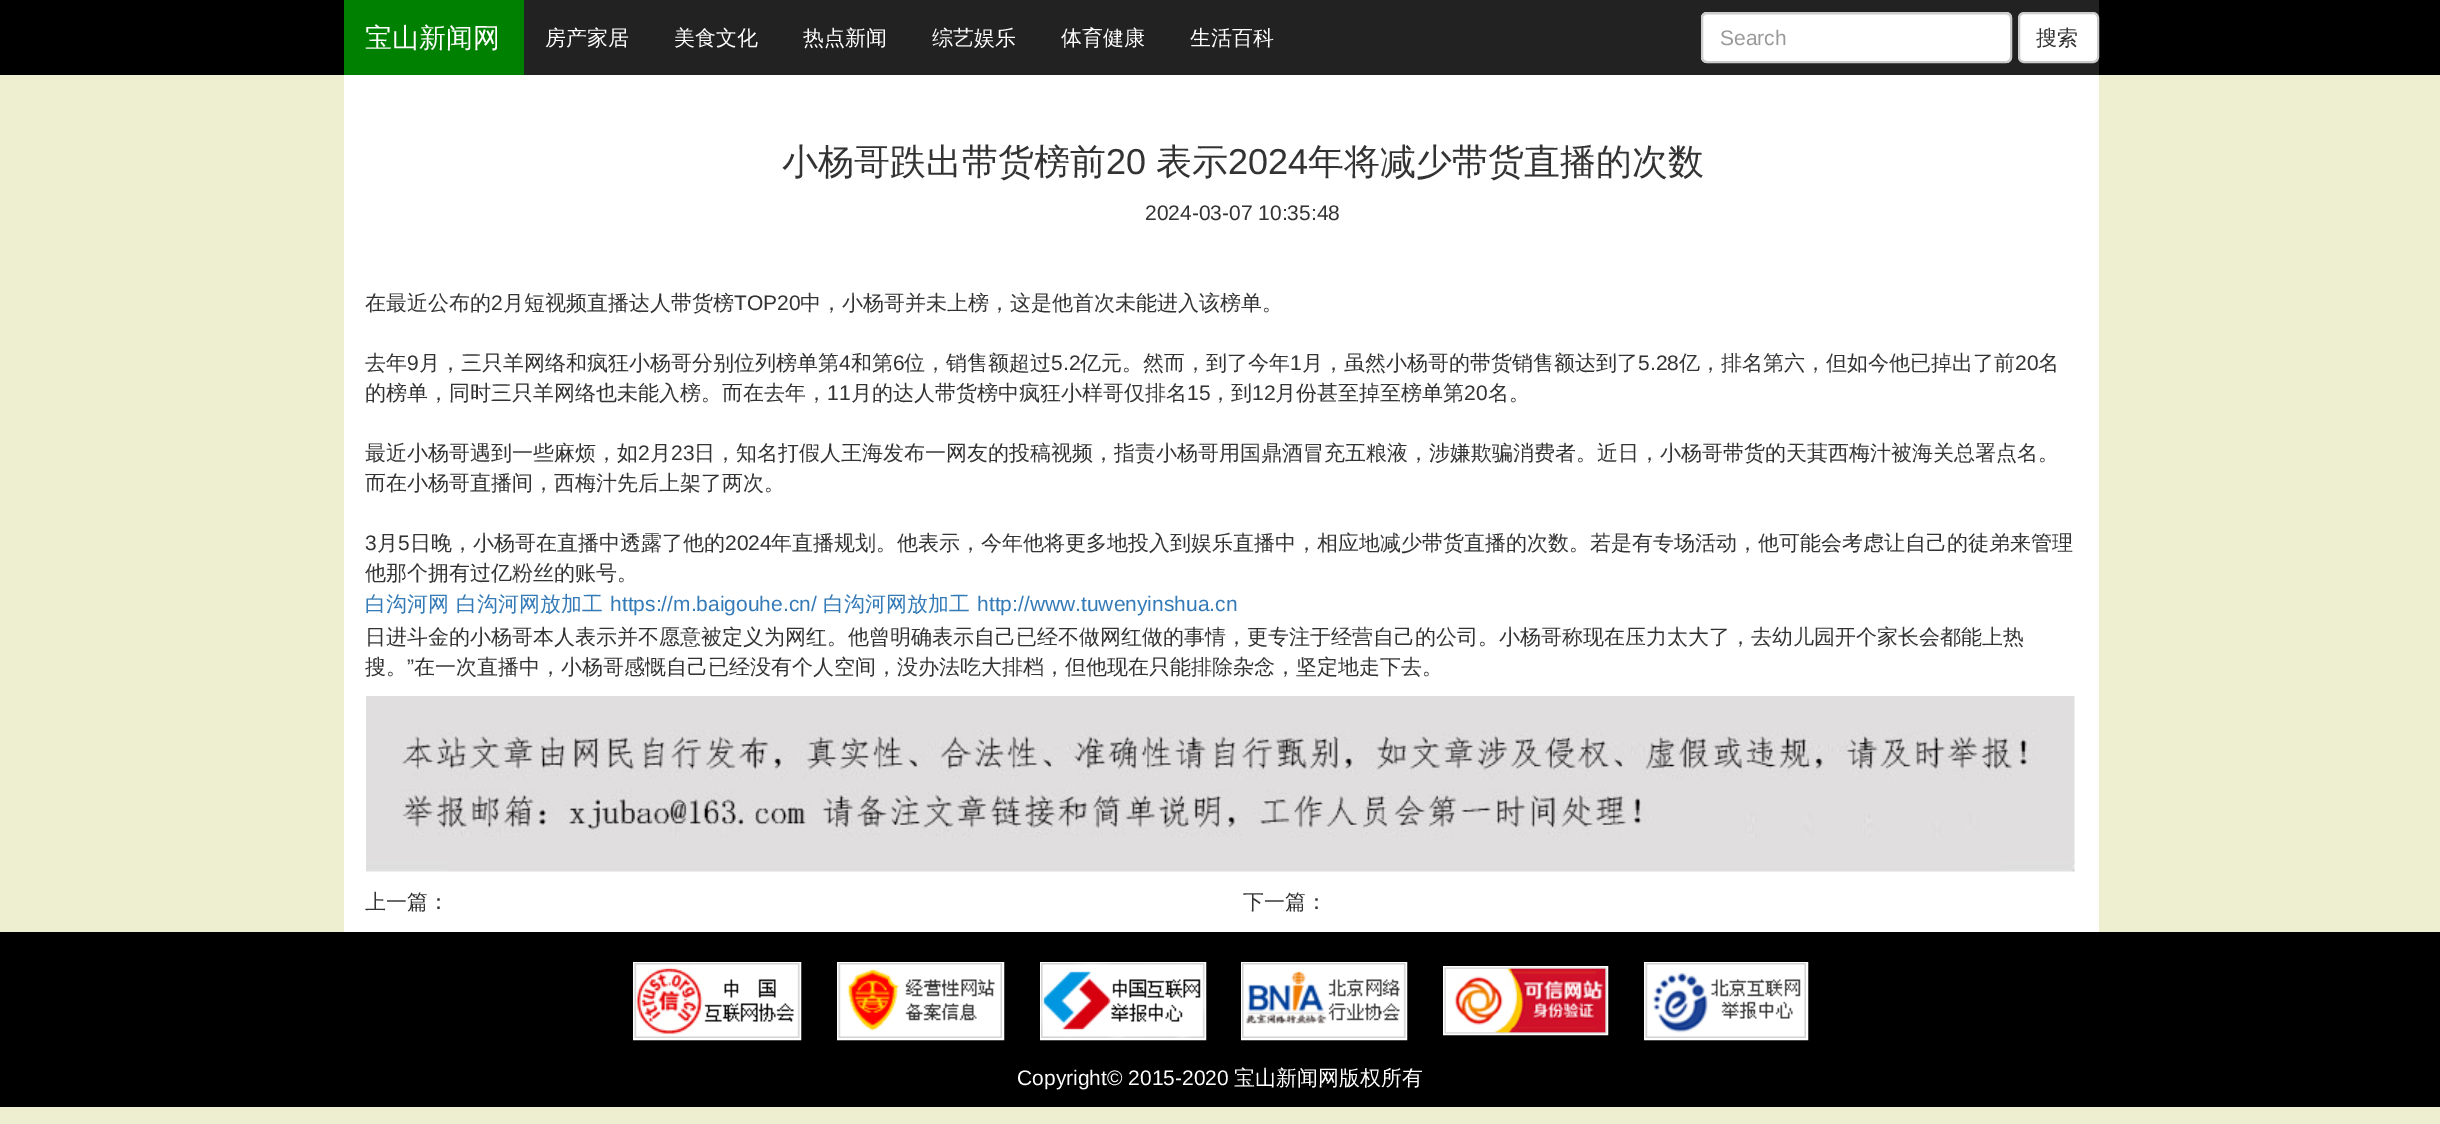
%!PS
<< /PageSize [2440 1124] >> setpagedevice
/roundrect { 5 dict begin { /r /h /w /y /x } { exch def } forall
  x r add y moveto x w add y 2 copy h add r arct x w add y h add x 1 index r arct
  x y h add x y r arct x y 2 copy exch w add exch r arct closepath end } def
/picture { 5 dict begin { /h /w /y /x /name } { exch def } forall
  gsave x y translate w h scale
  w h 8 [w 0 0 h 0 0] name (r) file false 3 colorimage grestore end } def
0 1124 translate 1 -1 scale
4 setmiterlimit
0.933 0.933 0.82 setrgbcolor
0 0 2440 1124 rectfill
0 setgray
0 0 2440 75 rectfill
0.133 setgray
524 0 1575 75 rectfill
0 0.502 0 setrgbcolor
344 0 180 75 rectfill
/WenQuanYiZenHei-Medium [27 0 0 -27 0 0] selectfont
1 setgray
365 47 moveto (宝山新闻网) show
/WenQuanYiZenHei-Medium [21 0 0 -21 0 0] selectfont
545 45 moveto (房产家居) show
674 45 moveto (美食文化) show
803 45 moveto (热点新闻) show
932 45 moveto (综艺娱乐) show
1061 45 moveto (体育健康) show
1190 45 moveto (生活百科) show
1701 12 311 51 6 roundrect fill
0.925 setgray
newpath 1707 15 moveto 2006 15 lineto 2008 15 2010 17 2010 20 curveto 2010 19 lineto 2010 16 2008 14 2005 14 curveto 1708 14 lineto 1706 14 1705 15 1704 16 curveto closepath fill
0.8 setgray
2 setlinewidth
1702 13 309 49 5 roundrect stroke
/LiberationSans-Regular [21 0 0 -21 0 0] selectfont
0.6 setgray
1720 45 moveto (Search) show
1 setgray
2019 13 79 49 5 roundrect gsave fill grestore
0.8 setgray
stroke
/WenQuanYiZenHei-Medium [21 0 0 -21 0 0] selectfont
0.2 setgray
2036 45 moveto (搜索) show
1 setgray
344 75 1755 857 rectfill
/WenQuanYiZenHei-Medium [36 0 0 -36 0 0] selectfont
0.2 setgray
782 174 moveto (小杨哥跌出带货榜前) show
/LiberationSans-Regular [36 0 0 -36 0 0] selectfont
1106 174 moveto (20) show
/WenQuanYiZenHei-Medium [36 0 0 -36 0 0] selectfont
1156 174 moveto (表示) show
/LiberationSans-Regular [36 0 0 -36 0 0] selectfont
1228 174 moveto (2024) show
/WenQuanYiZenHei-Medium [36 0 0 -36 0 0] selectfont
1308 174 moveto (年将减少带货直播的次数) show
/LiberationSans-Regular [21 0 0 -21 0 0] selectfont
1145 220 moveto (2024-03-07 10:35:48) show
/WenQuanYiZenHei-Medium [21 0 0 -21 0 0] selectfont
365 310 moveto (在最近公布的) show
/LiberationSans-Regular [21 0 0 -21 0 0] selectfont
491 310 moveto (2) show
/WenQuanYiZenHei-Medium [21 0 0 -21 0 0] selectfont
503 310 moveto (月短视频直播达人带货榜) show
/LiberationSans-Regular [21 0 0 -21 0 0] selectfont
734 310 moveto (TOP20) show
/WenQuanYiZenHei-Medium [21 0 0 -21 0 0] selectfont
800 310 moveto (中，小杨哥并未上榜，这是他首次未能进入该榜单。) show
365 370 moveto (去年) show
/LiberationSans-Regular [21 0 0 -21 0 0] selectfont
407 370 moveto (9) show
/WenQuanYiZenHei-Medium [21 0 0 -21 0 0] selectfont
419 370 moveto (月，三只羊网络和疯狂小杨哥分别位列榜单第) show
/LiberationSans-Regular [21 0 0 -21 0 0] selectfont
839 370 moveto (4) show
/WenQuanYiZenHei-Medium [21 0 0 -21 0 0] selectfont
851 370 moveto (和第) show
/LiberationSans-Regular [21 0 0 -21 0 0] selectfont
893 370 moveto (6) show
/WenQuanYiZenHei-Medium [21 0 0 -21 0 0] selectfont
904 370 moveto (位，销售额超过) show
/LiberationSans-Regular [21 0 0 -21 0 0] selectfont
1051 370 moveto (5.2) show
/WenQuanYiZenHei-Medium [21 0 0 -21 0 0] selectfont
1080 370 moveto (亿元。然而，到了今年) show
/LiberationSans-Regular [21 0 0 -21 0 0] selectfont
1290 370 moveto (1) show
/WenQuanYiZenHei-Medium [21 0 0 -21 0 0] selectfont
1302 370 moveto (月，虽然小杨哥的带货销售额达到了) show
/LiberationSans-Regular [21 0 0 -21 0 0] selectfont
1638 370 moveto (5.28) show
/WenQuanYiZenHei-Medium [21 0 0 -21 0 0] selectfont
1679 370 moveto (亿，排名第六，但如今他已掉出了前) show
/LiberationSans-Regular [21 0 0 -21 0 0] selectfont
2015 370 moveto (20) show
/WenQuanYiZenHei-Medium [21 0 0 -21 0 0] selectfont
2038 370 moveto (名) show
365 400 moveto (的榜单，同时三只羊网络也未能入榜。而在去年，) show
/LiberationSans-Regular [21 0 0 -21 0 0] selectfont
827 400 moveto (11) show
/WenQuanYiZenHei-Medium [21 0 0 -21 0 0] selectfont
851 400 moveto (月的达人带货榜中疯狂小样哥仅排名) show
/LiberationSans-Regular [21 0 0 -21 0 0] selectfont
1187 400 moveto (15) show
/WenQuanYiZenHei-Medium [21 0 0 -21 0 0] selectfont
1210 400 moveto (，到) show
/LiberationSans-Regular [21 0 0 -21 0 0] selectfont
1252 400 moveto (12) show
/WenQuanYiZenHei-Medium [21 0 0 -21 0 0] selectfont
1275 400 moveto (月份甚至掉至榜单第) show
/LiberationSans-Regular [21 0 0 -21 0 0] selectfont
1464 400 moveto (20) show
/WenQuanYiZenHei-Medium [21 0 0 -21 0 0] selectfont
1488 400 moveto (名。) show
365 460 moveto (最近小杨哥遇到一些麻烦，如) show
/LiberationSans-Regular [21 0 0 -21 0 0] selectfont
638 460 moveto (2) show
/WenQuanYiZenHei-Medium [21 0 0 -21 0 0] selectfont
650 460 moveto (月) show
/LiberationSans-Regular [21 0 0 -21 0 0] selectfont
671 460 moveto (23) show
/WenQuanYiZenHei-Medium [21 0 0 -21 0 0] selectfont
694 460 moveto (日，知名打假人王海发布一网友的投稿视频，指责小杨哥用国鼎酒冒充五粮液，涉嫌欺骗消费者。近日，小杨哥带货的天萁西梅汁被海关总署点名。) show
365 490 moveto (而在小杨哥直播间，西梅汁先后上架了两次。) show
/LiberationSans-Regular [21 0 0 -21 0 0] selectfont
365 550 moveto (3) show
/WenQuanYiZenHei-Medium [21 0 0 -21 0 0] selectfont
377 550 moveto (月) show
/LiberationSans-Regular [21 0 0 -21 0 0] selectfont
398 550 moveto (5) show
/WenQuanYiZenHei-Medium [21 0 0 -21 0 0] selectfont
410 550 moveto (日晚，小杨哥在直播中透露了他的) show
/LiberationSans-Regular [21 0 0 -21 0 0] selectfont
725 550 moveto (2024) show
/WenQuanYiZenHei-Medium [21 0 0 -21 0 0] selectfont
771 550 moveto (年直播规划。他表示，今年他将更多地投入到娱乐直播中，相应地减少带货直播的次数。若是有专场活动，他可能会考虑让自己的徒弟来管理) show
365 580 moveto (他那个拥有过亿粉丝的账号。) show
0.2 0.478 0.718 setrgbcolor
365 611 moveto (白沟河网) show
456 611 moveto (白沟河网放加工) show
/LiberationSans-Regular [21 0 0 -21 0 0] selectfont
610 611 moveto (https://m.baigouhe.cn/) show
/WenQuanYiZenHei-Medium [21 0 0 -21 0 0] selectfont
823 611 moveto (白沟河网放加工) show
/LiberationSans-Regular [21 0 0 -21 0 0] selectfont
977 611 moveto (http://www.tuwenyinshua.cn) show
/WenQuanYiZenHei-Medium [21 0 0 -21 0 0] selectfont
0.2 setgray
365 644 moveto (日进斗金的小杨哥本人表示并不愿意被定义为网红。他曾明确表示自己已经不做网红做的事情，更专注于经营自己的公司。小杨哥称现在压力太大了，去幼儿园开个家长会都能上热) show
365 674 moveto (搜。) show
/LiberationSans-Regular [21 0 0 -21 0 0] selectfont
407 674 moveto (”) show
/WenQuanYiZenHei-Medium [21 0 0 -21 0 0] selectfont
414 674 moveto (在一次直播中，小杨哥感慨自己已经没有个人空间，没办法吃大排档，但他现在只能排除杂念，坚定地走下去。) show
(img1.rgb) 366 696 1709 176 picture
365 909 moveto (上一篇：) show
1243 909 moveto (下一篇：) show
0 setgray
0 932 2440 175 rectfill
1 setgray
634 963 166 76 rectstroke
838 963 165 76 rectstroke
1041 963 164 76 rectstroke
1242 963 164 76 rectstroke
1645 963 162 76 rectstroke
(img2.rgb) 634 963 166 75 picture
(img3.rgb) 838 963 164 75 picture
(img4.rgb) 1041 963 164 75 picture
(img5.rgb) 1242 963 164 75 picture
1444 967 163 67 rectstroke
(img6.rgb) 1645 963 161 75 picture
(img7.rgb) 1444 967 163 67 picture
/LiberationSans-Regular [21 0 0 -21 0 0] selectfont
1017 1085 moveto (Copyright© 2015-2020) show
/WenQuanYiZenHei-Medium [21 0 0 -21 0 0] selectfont
1234 1085 moveto (宝山新闻网版权所有) show
showpage
